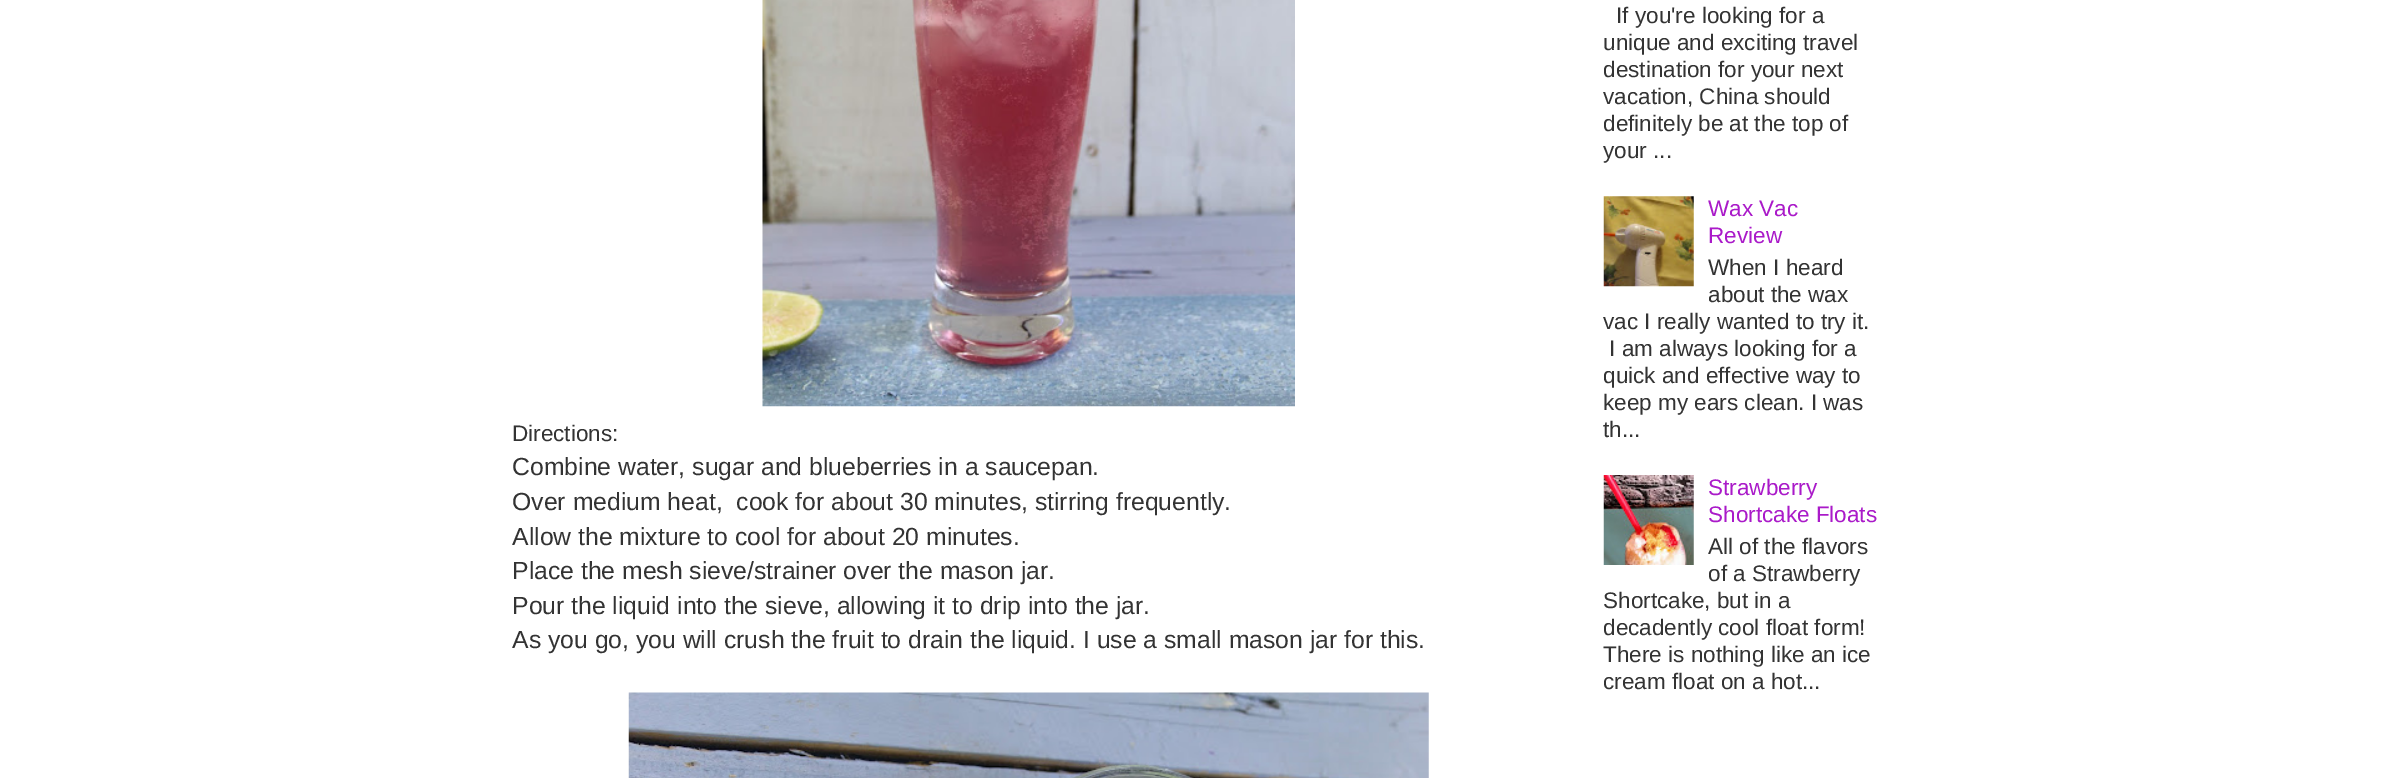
%!PS
<< /PageSize [2381 778] >> setpagedevice
/picture { 5 dict begin { /h /w /y /x /name } { exch def } forall
  gsave x y translate w h scale
  w h 8 [w 0 0 h 0 0] name (r) file false 3 colorimage grestore end } def
0 778 translate 1 -1 scale
4 setmiterlimit
1 setgray
0 0 2381 778 rectfill
(img1.rgb) 762 0 533 407 picture
/LiberationSans-Regular [22.5 0 0 -22.5 0 0] selectfont
0.2 setgray
512 441 moveto (Directions:) show
/LiberationSans-Regular [24.75 0 0 -24.75 0 0] selectfont
512 475 moveto (Combine water, sugar and blueberries in a saucepan.) show
512 510 moveto (Over medium heat,  cook for about 30 minutes, stirring frequently.) show
512 545 moveto (Allow the mixture to cool for about 20 minutes.) show
512 579 moveto (Place the mesh sieve/strainer over the mason jar.) show
512 614 moveto (Pour the liquid into the sieve, allowing it to drip into the jar.) show
512 648 moveto (As you go, you will crush the fruit to drain the liquid. I use a small mason jar for this.) show
(img2.rgb) 628 692 801 86 picture
/LiberationSans-Regular [22.5 0 0 -22.5 0 0] selectfont
1616 23 moveto (If you're looking for a) show
1603 50 moveto (unique and exciting travel) show
1603 77 moveto (destination for your next) show
1603 104 moveto (vacation, China should) show
1603 131 moveto (definitely be at the top of) show
1603 158 moveto (your ...) show
(img3.rgb) 1603 196 91 91 picture
0.667 0.102 0.788 setrgbcolor
1708 216 moveto (Wax Vac) show
1708 243 moveto (Review) show
0.2 setgray
1708 275 moveto (When I heard) show
1708 302 moveto (about the wax) show
1603 329 moveto (vac I really wanted to try it.) show
1609 356 moveto (I am always looking for a) show
1603 383 moveto (quick and effective way to) show
1603 410 moveto (keep my ears clean. I was) show
1603 437 moveto (th...) show
(img4.rgb) 1603 475 91 90 picture
0.667 0.102 0.788 setrgbcolor
1708 495 moveto (Strawberry) show
1708 522 moveto (Shortcake Floats) show
0.2 setgray
1708 554 moveto (All of the flavors) show
1708 581 moveto (of a Strawberry) show
1603 608 moveto (Shortcake, but in a) show
1603 635 moveto (decadently cool float form!) show
1603 662 moveto (There is nothing like an ice) show
1603 689 moveto (cream float on a hot...) show
showpage
